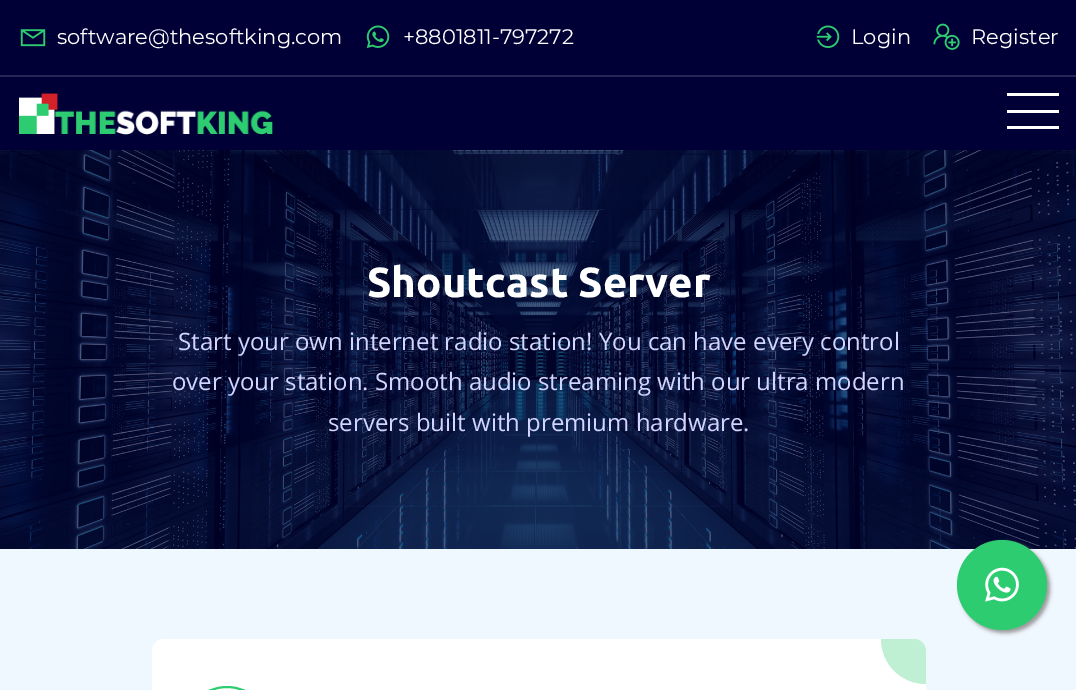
%!PS
<< /PageSize [1076 690] /PageUsesTransparency true >> setpagedevice
/alpha { dup .setfillconstantalpha .setstrokeconstantalpha } def
/roundrect { 5 dict begin { /r /h /w /y /x } { exch def } forall
  x r add y moveto x w add y 2 copy h add r arct x w add y h add x 1 index r arct
  x y h add x y r arct x y 2 copy exch w add exch r arct closepath end } def
/shadow { 12 dict begin { /a /b /q /h /w /y /x } { exch def } forall gsave /was 0 def
  9 -2 -9 { dup b mul 4 div /e exch def 1 sub .425 mul 2.718 exch exp 1 add a .99 .min exch div /now exch def
    1 1 now sub 1 was sub div sub alpha /was now def
    w h .min e 2 mul add 0 gt { x e sub y e sub w e 2 mul add h e 2 mul add
      q e add b .6 mul add w h .min 2 div e add .min 0 .max roundrect fill } if } for grestore end } def
/picture { 5 dict begin { /h /w /y /x /name } { exch def } forall
  gsave x y translate w h scale
  w h 8 [w 0 0 h 0 0] name (r) file false 3 colorimage grestore end } def
0 .pushpdf14devicefilter
0 690 translate 1 -1 scale
4 setmiterlimit
0 0 0.212 setrgbcolor
0 0 1076 690 rectfill
(img1.rgb) 20 29 26 18 picture
/Montserrat-Regular [21 0 0 -21 0 0] selectfont
1 setgray
57 44 moveto (software@thesoftking.com) show
(img2.rgb) 366 25 24 23 picture
403 44 moveto (+8801811-797272) show
(img3.rgb) 816 25 24 23 picture
851 44 moveto (Login) show
(img4.rgb) 933 23 27 27 picture
971 44 moveto (Register) show
0.149 0.149 0.329 setrgbcolor
0 75 1076 2 rectfill
(img5.rgb) 19 93 254 42 picture
1 setgray
1007 93 52 3 rectfill
1007 126 52 3 rectfill
1007 110 52 3 rectfill
(img6.rgb) 0 150 1076 399 picture
/Ubuntu-Bold [42 0 0 -42 0 0] selectfont
367 297 moveto (Shoutcast Server) show
/OpenSans-Regular [24 0 0 -24 0 0] selectfont
0.82 0.835 1 setrgbcolor
178 350 moveto (Start your own internet radio station! You can have every control) show
172 390 moveto (over your station. Smooth audio streaming with our ultra modern) show
328 431 moveto (servers built with premium hardware.) show
0.941 0.973 1 setrgbcolor
0 549 1076 141 rectfill
1 setgray
152 639 774 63 12 roundrect fill
0.3 alpha
0.18 0.8 0.443 setrgbcolor
newpath 881 639 moveto 914 639 lineto 920.5 639 926 644.5 926 651 curveto 926 684 lineto 901 684 881 664 881 639 curveto closepath fill
1 alpha
2 setlinewidth
183 687 88 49 44 roundrect stroke
0.6 setgray
960 543 90 90 45 2 1 shadow
0.18 0.8 0.443 setrgbcolor
newpath 1002 585 45 0 360 arc closepath fill
(img7.rgb) 985 567 34 35 picture
.poppdf14devicefilter showpage
